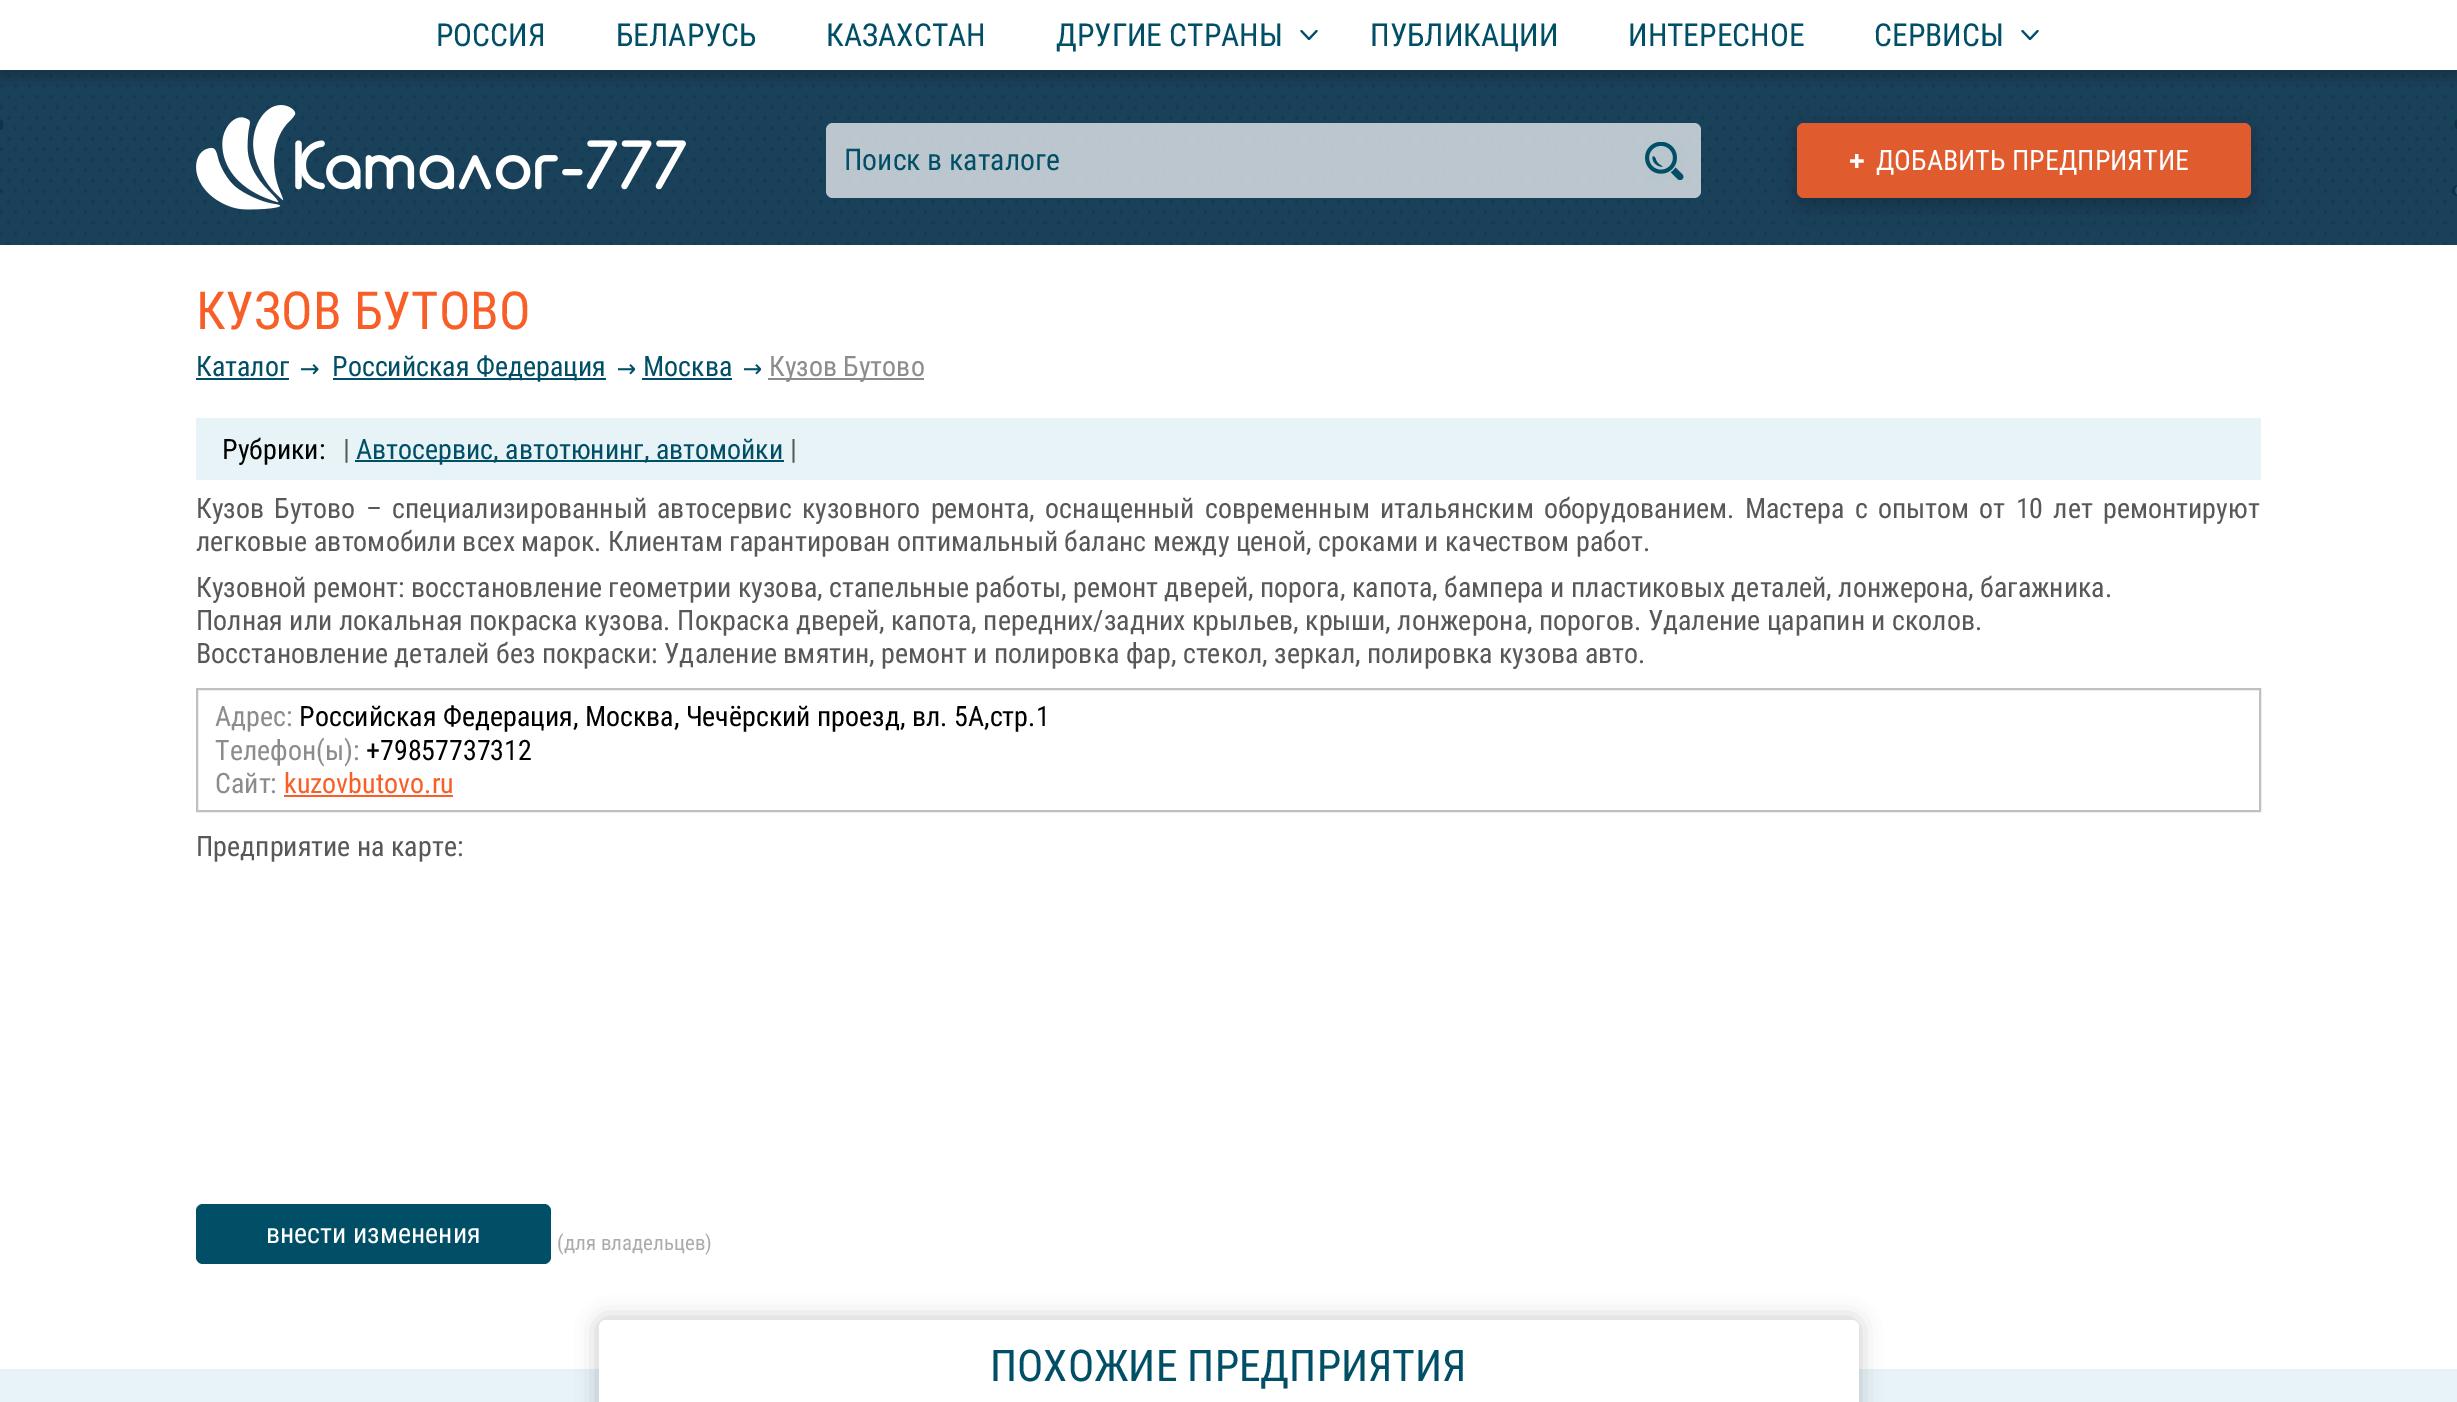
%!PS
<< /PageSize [2457 1402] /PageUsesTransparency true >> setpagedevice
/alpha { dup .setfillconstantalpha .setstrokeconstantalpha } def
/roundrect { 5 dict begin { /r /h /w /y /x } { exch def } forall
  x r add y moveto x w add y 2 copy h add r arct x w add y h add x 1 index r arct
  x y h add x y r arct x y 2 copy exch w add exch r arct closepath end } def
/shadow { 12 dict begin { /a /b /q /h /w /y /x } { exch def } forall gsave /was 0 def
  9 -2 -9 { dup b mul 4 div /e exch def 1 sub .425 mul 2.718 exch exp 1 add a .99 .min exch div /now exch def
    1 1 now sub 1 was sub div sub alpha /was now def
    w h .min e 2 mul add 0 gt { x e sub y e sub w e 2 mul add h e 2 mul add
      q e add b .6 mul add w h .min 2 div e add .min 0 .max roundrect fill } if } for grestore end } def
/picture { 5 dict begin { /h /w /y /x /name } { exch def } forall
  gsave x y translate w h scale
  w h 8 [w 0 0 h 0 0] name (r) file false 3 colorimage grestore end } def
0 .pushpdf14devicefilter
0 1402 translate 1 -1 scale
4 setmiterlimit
1 setgray
0 0 2457 1402 rectfill
0.102 0.255 0.353 setrgbcolor
0 70 2457 175 rectfill
(img2.rgb) 0 74 2453 171 picture
gsave
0 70 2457 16 rectclip
0 setgray
0 7 2457 70 0 7 0.2 shadow
grestore
/RobotoCondensed-Regular [31.5 0 0 -31.5 0 0] selectfont
0 0.31 0.4 setrgbcolor
436 46 moveto (РОССИЯ) show
616 46 moveto (БЕЛАРУСЬ) show
826 46 moveto (КАЗАХСТАН) show
1056 46 moveto (ДРУГИЕ СТРАНЫ) show
(img1.rgb) 1300 30 18 10 picture
1370 46 moveto (ПУБЛИКАЦИИ) show
1628 46 moveto (ИНТЕРЕСНОЕ) show
1874 46 moveto (СЕРВИСЫ) show
(img1.rgb) 2021 30 18 10 picture
(img3.rgb) 0 119 4 74 picture
(img4.rgb) 2452 119 5 77 picture
(img5.rgb) 196 105 490 105 picture
0.7 alpha
1 setgray
826 123 875 75 7 roundrect fill
/RobotoCondensed-Regular [29.75 0 0 -29.75 0 0] selectfont
1 alpha
0 0.31 0.4 setrgbcolor
844 170 moveto (Поиск в каталоге) show
(img6.rgb) 1645 142 39 38 picture
0 setgray
1796 128 456 79 9 9 0.2 shadow
0.878 0.357 0.18 setrgbcolor
1797 123 454 75 7 roundrect fill
(img7.rgb) 1850 154 14 14 picture
/RobotoCondensed-Regular [28 0 0 -28 0 0] selectfont
1 setgray
1876 170 moveto (ДОБАВИТЬ ПРЕДПРИЯТИЕ) show
/RobotoCondensed-Regular [52.5 0 0 -52.5 0 0] selectfont
0.973 0.369 0.157 setrgbcolor
196 329 moveto (КУЗОВ БУТОВО) show
(img8.rgb) 301 364 18 11 picture
/RobotoCondensed-Regular [28 0 0 -28 0 0] selectfont
0 0.31 0.4 setrgbcolor
196 376 moveto (Каталог) show
196 378 93 2 rectfill
(img9.rgb) 618 364 17 11 picture
333 378 273 2 rectfill
332 376 moveto (Российcкая Федерация) show
(img9.rgb) 744 364 17 11 picture
643 376 moveto (Москва) show
642 378 90 2 rectfill
0.549 setgray
768 378 156 2 rectfill
769 376 moveto (Кузов Бутово) show
0.906 0.953 0.969 setrgbcolor
196 418 2065 62 rectfill
0 setgray
222 459 moveto (Рубрики:) show
0.345 setgray
343 459 moveto (|) show
0 0.31 0.4 setrgbcolor
355 460 429 2 rectfill
356 459 moveto (Автосервис, автотюнинг, автомойки) show
0.345 setgray
790 459 moveto (|) show
196 518 moveto 3.75 0 32 (Кузов Бутово – специализированный автосервис кузовного ремонта, оснащенный современным итальянским оборудованием. Мастера с опытом от 10 лет ремонтируют) widthshow
196 551 moveto (легковые автомобили всех марок. Клиентам гарантирован оптимальный баланс между ценой, сроками и качеством работ.) show
196 597 moveto (Кузовной ремонт: восстановление геометрии кузова, стапельные работы, ремонт дверей, порога, капота, бампера и пластиковых деталей, лонжерона, багажника.) show
196 630 moveto (Полная или локальная покраска кузова. Покраска дверей, капота, передних/задних крыльев, крыши, лонжерона, порогов. Удаление царапин и сколов.) show
196 663 moveto (Восстановление деталей без покраски: Удаление вмятин, ремонт и полировка фар, стекол, зеркал, полировка кузова авто.) show
0.753 setgray
2 setlinewidth
197 689 2063 122 rectstroke
0.549 setgray
215 726 moveto (Адрес:) show
0 setgray
299 726 moveto (Российcкая Федерация, Москва, Чечёрский проезд, вл. 5А,стр.1) show
0.549 setgray
215 760 moveto (Телефон\(ы\):) show
0 setgray
366 760 moveto (+79857737312) show
0.549 setgray
215 793 moveto (Сайт:) show
0.973 0.369 0.157 setrgbcolor
284 793 moveto (kuzovbutovo.ru) show
284 795 169 2 rectfill
0.345 setgray
196 856 moveto (Предприятие на карте:) show
0 0.31 0.4 setrgbcolor
196 1204 355 60 7 roundrect fill
1 setgray
266 1243 moveto (внести изменения) show
/RobotoCondensed-Regular [21 0 0 -21 0 0] selectfont
0.671 setgray
557 1250 moveto (\(для владельцев\)) show
0.906 0.953 0.969 setrgbcolor
0 1369 2457 33 rectfill
0 setgray
597 1318 1263 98 9 10.5 0.2 shadow
1 setgray
599 1320 1260 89 7 roundrect fill
/RobotoCondensed-Regular [43.75 0 0 -43.75 0 0] selectfont
0 0.31 0.4 setrgbcolor
990 1381 moveto (ПОХОЖИЕ ПРЕДПРИЯТИЯ) show
.poppdf14devicefilter showpage
